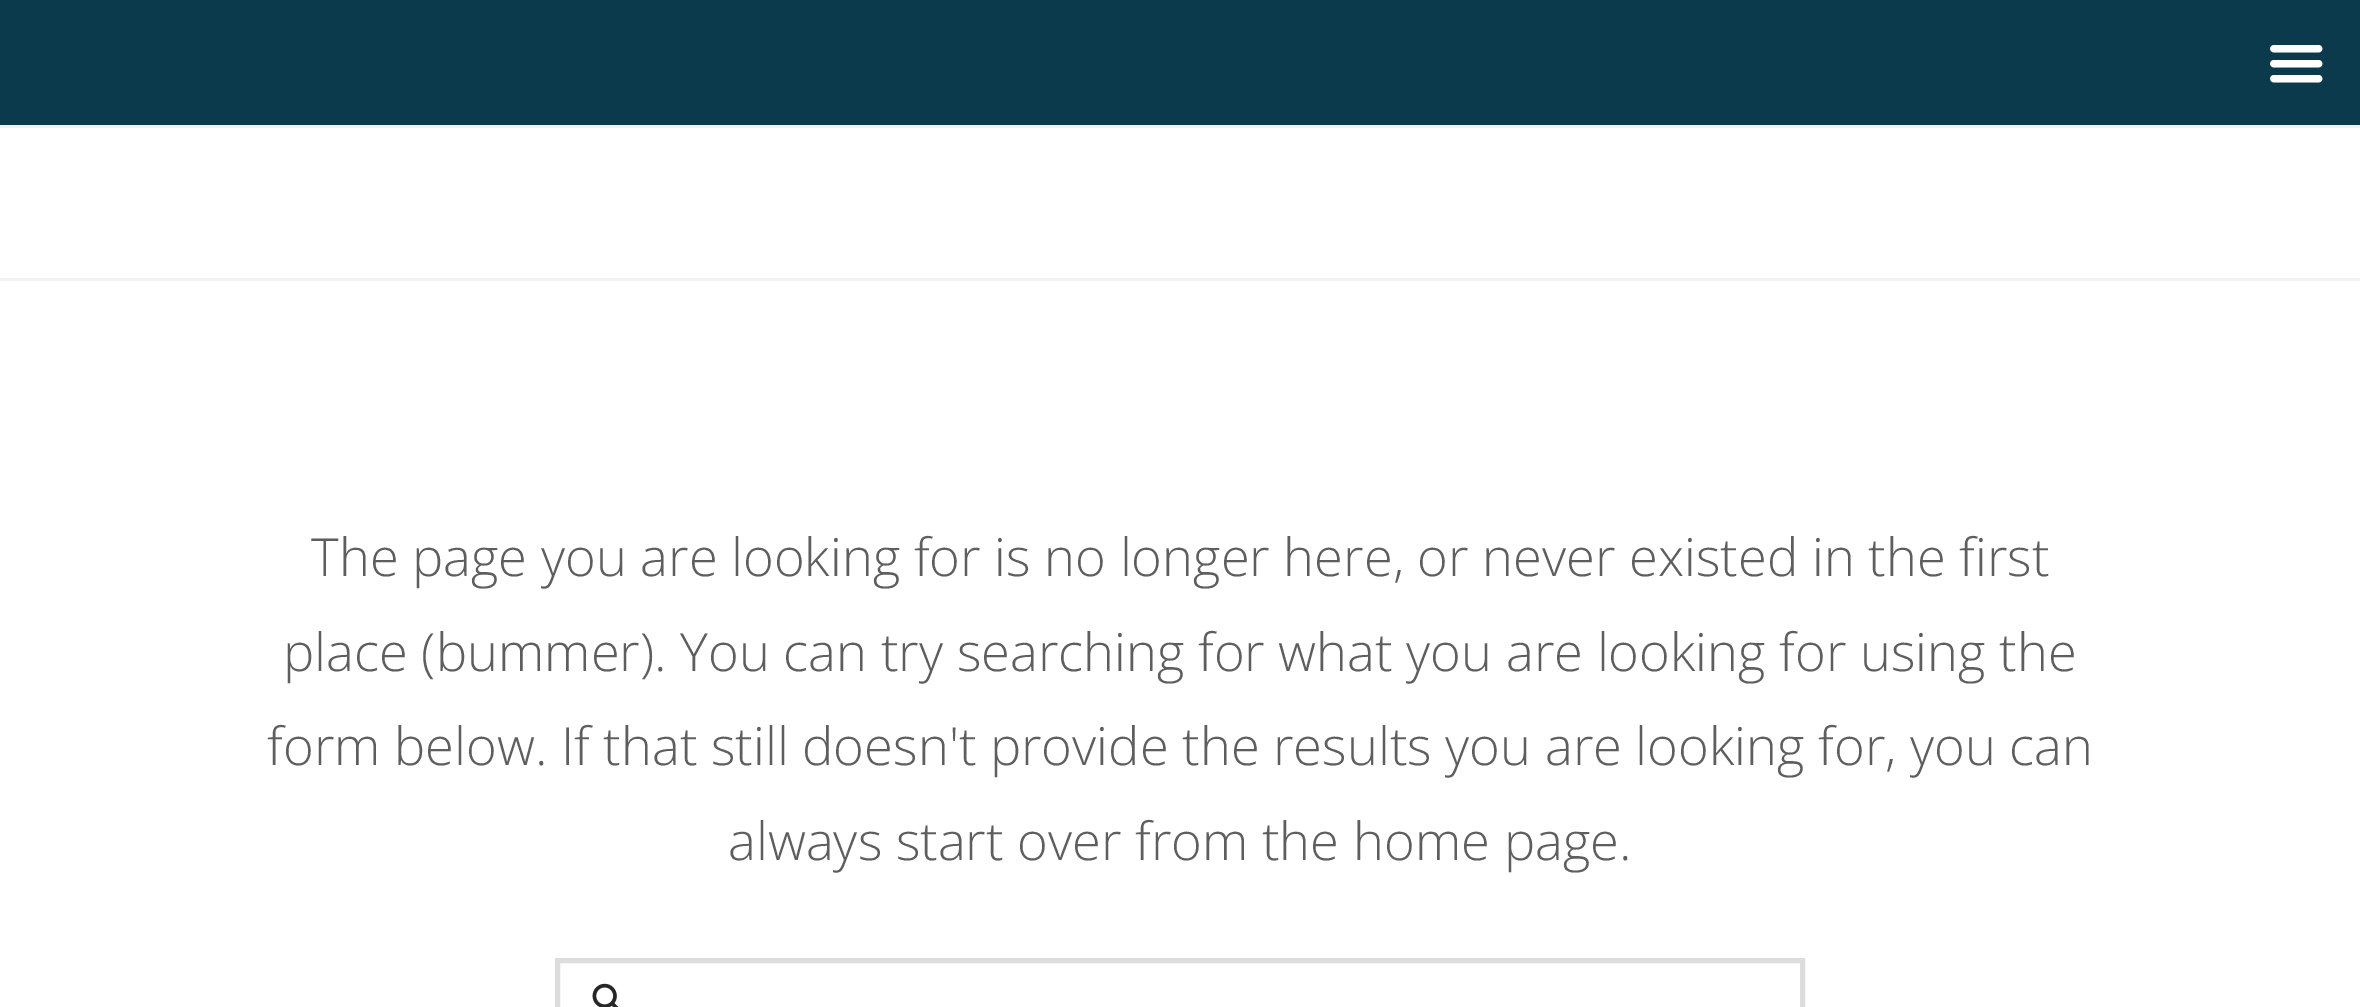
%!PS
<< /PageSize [2360 1007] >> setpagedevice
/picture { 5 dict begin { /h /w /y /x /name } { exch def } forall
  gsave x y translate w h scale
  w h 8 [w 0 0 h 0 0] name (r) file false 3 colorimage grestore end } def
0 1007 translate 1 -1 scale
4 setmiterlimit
1 setgray
0 0 2360 1007 rectfill
0.043 0.227 0.302 setrgbcolor
0 0 2360 125 rectfill
(img1.rgb) 2270 45 53 38 picture
0.949 setgray
0 125 2360 3 rectfill
0 278 2360 3 rectfill
/OpenSans-Light [52.5 0 0 -52.5 0 0] selectfont
0.369 setgray
311 576 moveto (The page you are looking for is no longer here, or never existed in the first) show
283 671 moveto (place \(bummer\). You can try searching for what you are looking for using the) show
267 765 moveto (form below. If that still doesn't provide the results you are looking for, you can) show
728 860 moveto (always start over from the home page.) show
0.867 setgray
5 setlinewidth
557.5 960.5 1245 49 rectstroke
(img2.rgb) 592 983 27 24 picture
showpage
